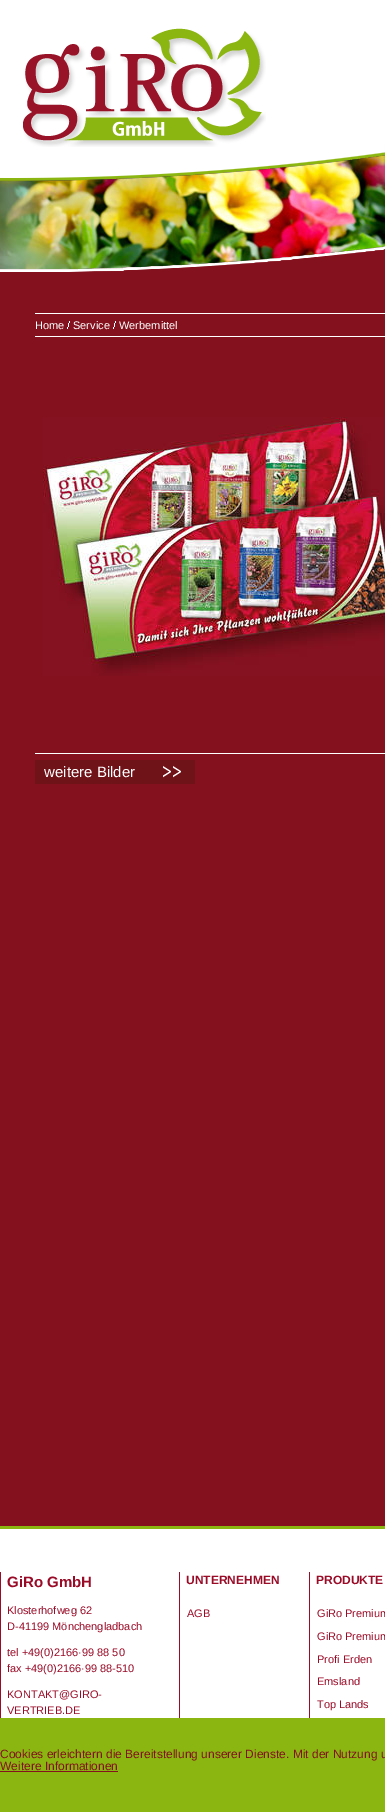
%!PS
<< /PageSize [385 1812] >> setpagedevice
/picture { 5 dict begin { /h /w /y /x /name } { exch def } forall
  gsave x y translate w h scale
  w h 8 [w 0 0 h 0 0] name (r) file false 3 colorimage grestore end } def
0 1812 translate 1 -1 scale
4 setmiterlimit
0.518 0.071 0.118 setrgbcolor
0 0 385 1812 rectfill
(img1.rgb) 0 0 385 95 picture
(img5.rgb) 0 155 385 115 picture
(img2.rgb) 0 152 385 120 picture
(img4.rgb) 0 95 385 57 picture
(img3.rgb) 23 28 243 119 picture
1 setgray
35 313 350 1 rectfill
35 336 350 1 rectfill
/LiberationSans-Regular [11 0 0 -11 0 0] selectfont
35 329 moveto (Home) show
(img6.rgb) 67 321 3 8 picture
73 329 moveto (Service) show
(img6.rgb) 113 321 3 8 picture
119 329 moveto (Werbemittel) show
(img7.rgb) 43 417 342 259 picture
35 753 350 1 rectfill
0.439 0.075 0.094 setrgbcolor
35 760 160 24 rectfill
(img8.rgb) 163 766 18 12 picture
/LiberationSans-Regular [15 0 0 -15 0 0] selectfont
1 setgray
44 777 moveto (weitere Bilder) show
0 1529 385 189 rectfill
0.545 0.714 0.067 setrgbcolor
0 1526 385 3 rectfill
0.6 0.043 0.153 setrgbcolor
179 1572 1 146 rectfill
0 1572 1 146 rectfill
/LiberationSans-Bold [15 0 0 -15 0 0] selectfont
7 1587 moveto (GiRo GmbH) show
/LiberationSans-Regular [11 0 0 -11 0 0] selectfont
7 1614 moveto (Klosterhofweg 62) show
7 1630 moveto (D-41199 Mönchengladbach) show
7 1656 moveto (tel +49\(0\)2166·99 88 50) show
7 1672 moveto (fax +49\(0\)2166·99 88-510) show
7 1698 moveto (KONTAKT@GIRO-) show
7 1714 moveto (VERTRIEB.DE) show
309 1572 1 146 rectfill
/LiberationSans-Bold [12 0 0 -12 0 0] selectfont
186 1584 moveto (UNTERNEHMEN) show
/LiberationSans-Regular [11 0 0 -11 0 0] selectfont
187 1617 moveto (AGB) show
/LiberationSans-Bold [12 0 0 -12 0 0] selectfont
316 1584 moveto (PRODUKTE) show
/LiberationSans-Regular [11 0 0 -11 0 0] selectfont
317 1617 moveto (GiRo Premium) show
317 1640 moveto (GiRo Premium) show
317 1663 moveto (Profi Erden) show
317 1685 moveto (Emsland) show
317 1708 moveto (Top Lands) show
0.545 0.714 0.067 setrgbcolor
0 1718 385 94 rectfill
/LiberationSans-Regular [12 0 0 -12 0 0] selectfont
0.518 0.071 0.118 setrgbcolor
0 1758 moveto (Cookies erleichtern die Bereitstellung unserer Dienste. Mit der Nutzung u) show
0 1770 moveto (Weitere Informationen) show
0 1771 118 1 rectfill
showpage
